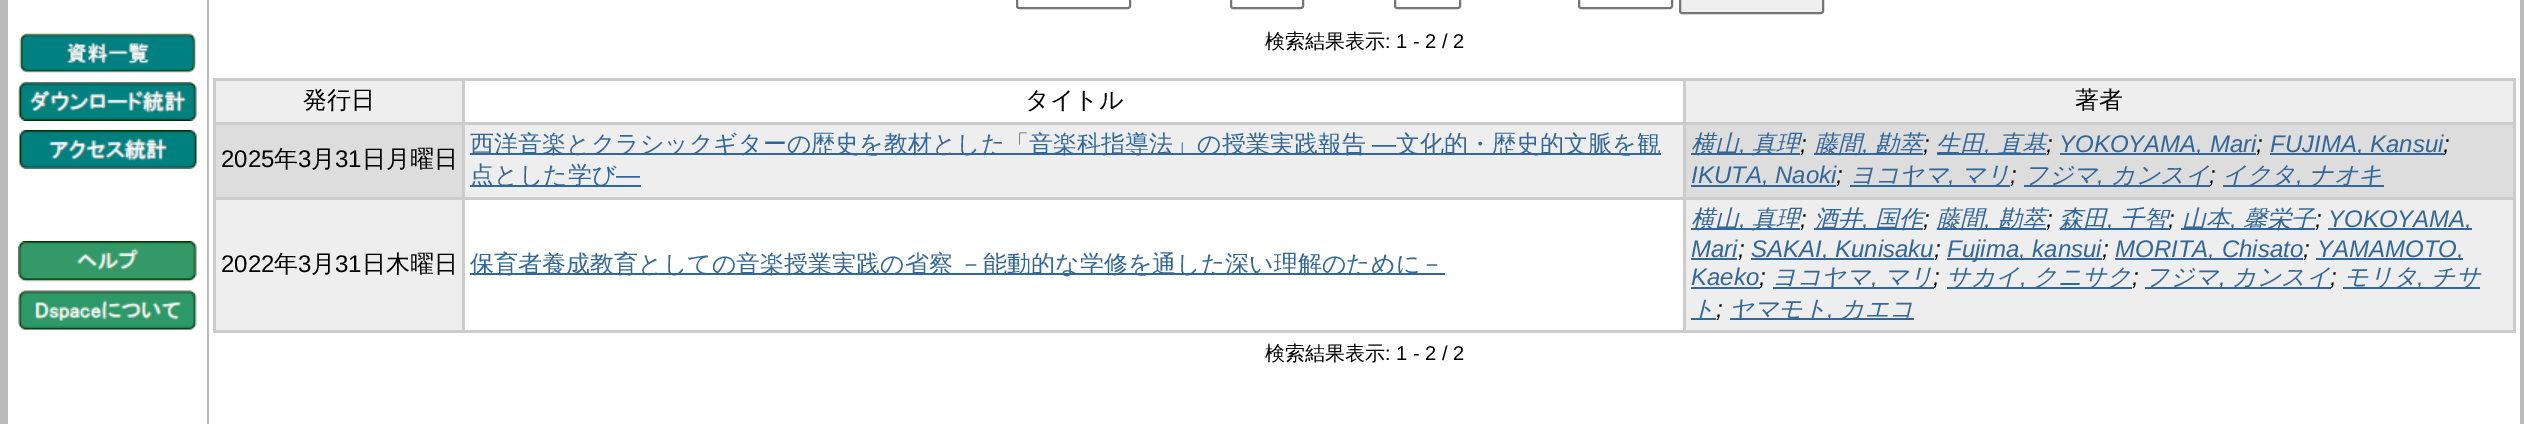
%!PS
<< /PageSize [2524 424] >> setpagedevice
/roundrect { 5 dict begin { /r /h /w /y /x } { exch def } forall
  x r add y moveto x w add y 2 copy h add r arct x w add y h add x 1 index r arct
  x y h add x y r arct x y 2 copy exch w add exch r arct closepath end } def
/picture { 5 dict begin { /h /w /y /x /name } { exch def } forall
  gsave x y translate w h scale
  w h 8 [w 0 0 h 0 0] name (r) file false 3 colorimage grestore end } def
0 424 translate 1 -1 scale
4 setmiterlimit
0.733 setgray
0 0 2524 424 rectfill
1 setgray
8 0 199 424 rectfill
(img1.rgb) 19 32 178 41 picture
(img2.rgb) 18 82 179 39 picture
(img3.rgb) 19 130 178 39 picture
(img4.rgb) 18 241 179 41 picture
(img5.rgb) 18 290 179 40 picture
209 0 2311 424 rectfill
0.463 setgray
2 setlinewidth
1017 -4 113 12 2 roundrect stroke
1231 -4 72 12 2 roundrect stroke
1395 -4 65 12 2 roundrect stroke
1579 -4 93 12 2 roundrect stroke
0.937 setgray
1680 -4 143 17 2 roundrect gsave fill grestore
0.463 setgray
stroke
/WenQuanYiZenHei-Medium [20 0 0 -20 0 0] selectfont
0 setgray
1265 48 moveto (検索結果表示) show
/LiberationSans-Regular [20 0 0 -20 0 0] selectfont
1385 48 moveto (: 1 - 2 / 2) show
0.8 setgray
213 78 2303 255 rectfill
0.933 setgray
216 81 246 41 rectfill
/WenQuanYiZenHei-Medium [24 0 0 -24 0 0] selectfont
0 setgray
303 108 moveto (発行日) show
1 setgray
465 81 1218 41 rectfill
0 setgray
1025 108 moveto (タイトル) show
0.933 setgray
1686 81 827 41 rectfill
0 setgray
2075 108 moveto (著者) show
0.867 setgray
216 125 246 72 rectfill
/LiberationSans-Regular [24 0 0 -24 0 0] selectfont
0 setgray
221 167 moveto (2025) show
/WenQuanYiZenHei-Medium [24 0 0 -24 0 0] selectfont
274 167 moveto (年) show
/LiberationSans-Regular [24 0 0 -24 0 0] selectfont
298 167 moveto (3) show
/WenQuanYiZenHei-Medium [24 0 0 -24 0 0] selectfont
311 167 moveto (月) show
/LiberationSans-Regular [24 0 0 -24 0 0] selectfont
335 167 moveto (31) show
/WenQuanYiZenHei-Medium [24 0 0 -24 0 0] selectfont
362 167 moveto (日月曜日) show
0.933 setgray
465 125 1218 72 rectfill
0.2 0.4 0.6 setrgbcolor
470 153 1191 2 rectfill
470 152 moveto (西洋音楽とクラシックギターの歴史を教材とした「音楽科指導法」の授業実践報告) show
/LiberationSans-Regular [24 0 0 -24 0 0] selectfont
1372 152 moveto (―) show
/WenQuanYiZenHei-Medium [24 0 0 -24 0 0] selectfont
1396 152 moveto (文化的・歴史的文脈を観) show
470 185 171 2 rectfill
470 183 moveto (点とした学び) show
/LiberationSans-Regular [24 0 0 -24 0 0] selectfont
616 183 moveto (―) show
0.867 setgray
1686 125 827 72 rectfill
0.2 0.4 0.6 setrgbcolor
1691 153 109 2 rectfill
/WenQuanYiZenHei-MediumItalic [24 0 0 -24 0 0] selectfont
1691 152 moveto (横山) show
1752 152 moveto (真理) show
/LiberationSans-Italic [24 0 0 -24 0 0] selectfont
0 setgray
1800 152 moveto (;) show
0.2 0.4 0.6 setrgbcolor
1814 153 109 2 rectfill
/WenQuanYiZenHei-MediumItalic [24 0 0 -24 0 0] selectfont
1814 152 moveto (藤間) show
1875 152 moveto (勘萃) show
1937 153 109 2 rectfill
1936 152 moveto (生田) show
1998 152 moveto (直基) show
2060 153 196 2 rectfill
/LiberationSans-Italic [24 0 0 -24 0 0] selectfont
2059 152 moveto (YOKOYAMA, Mari) show
2270 153 174 2 rectfill
2270 152 moveto (FUJIMA, Kansui) show
1739 152 moveto (,) show
1862 152 moveto (,) show
0 setgray
1923 152 moveto (;) show
0.2 0.4 0.6 setrgbcolor
1984 152 moveto (,) show
0 setgray
2046 152 moveto (;) show
2256 152 moveto (;) show
2443 152 moveto (;) show
0.2 0.4 0.6 setrgbcolor
1691 185 145 2 rectfill
1691 183 moveto (IKUTA, Naoki) show
0 setgray
1836 183 moveto (;) show
0.2 0.4 0.6 setrgbcolor
1850 185 160 2 rectfill
/WenQuanYiZenHei-MediumItalic [24 0 0 -24 0 0] selectfont
1850 183 moveto (ヨコヤマ) show
/LiberationSans-Italic [24 0 0 -24 0 0] selectfont
1948 183 moveto (,) show
/WenQuanYiZenHei-MediumItalic [24 0 0 -24 0 0] selectfont
1961 183 moveto (マリ) show
/LiberationSans-Italic [24 0 0 -24 0 0] selectfont
0 setgray
2010 183 moveto (;) show
0.2 0.4 0.6 setrgbcolor
2024 185 186 2 rectfill
/WenQuanYiZenHei-MediumItalic [24 0 0 -24 0 0] selectfont
2024 183 moveto (フジマ) show
/LiberationSans-Italic [24 0 0 -24 0 0] selectfont
2097 183 moveto (,) show
/WenQuanYiZenHei-MediumItalic [24 0 0 -24 0 0] selectfont
2111 183 moveto (カンスイ) show
/LiberationSans-Italic [24 0 0 -24 0 0] selectfont
0 setgray
2209 183 moveto (;) show
0.2 0.4 0.6 setrgbcolor
2223 185 161 2 rectfill
/WenQuanYiZenHei-MediumItalic [24 0 0 -24 0 0] selectfont
2222 183 moveto (イクタ) show
/LiberationSans-Italic [24 0 0 -24 0 0] selectfont
2296 183 moveto (,) show
/WenQuanYiZenHei-MediumItalic [24 0 0 -24 0 0] selectfont
2309 183 moveto (ナオキ) show
0.933 setgray
216 200 246 130 rectfill
/LiberationSans-Regular [24 0 0 -24 0 0] selectfont
0 setgray
221 272 moveto (2022) show
/WenQuanYiZenHei-Medium [24 0 0 -24 0 0] selectfont
274 272 moveto (年) show
/LiberationSans-Regular [24 0 0 -24 0 0] selectfont
298 272 moveto (3) show
/WenQuanYiZenHei-Medium [24 0 0 -24 0 0] selectfont
311 272 moveto (月) show
/LiberationSans-Regular [24 0 0 -24 0 0] selectfont
335 272 moveto (31) show
/WenQuanYiZenHei-Medium [24 0 0 -24 0 0] selectfont
362 272 moveto (日木曜日) show
1 setgray
465 200 1218 130 rectfill
0.2 0.4 0.6 setrgbcolor
470 273 975 2 rectfill
470 272 moveto -1 0 32 (保育者養成教育としての音楽授業実践の省察 －能動的な学修を通した深い理解のために－) widthshow
0.933 setgray
1686 200 827 130 rectfill
0.2 0.4 0.6 setrgbcolor
1691 228 109 2 rectfill
/WenQuanYiZenHei-MediumItalic [24 0 0 -24 0 0] selectfont
1691 227 moveto (横山) show
1752 227 moveto (真理) show
/LiberationSans-Italic [24 0 0 -24 0 0] selectfont
0 setgray
1800 227 moveto (;) show
0.2 0.4 0.6 setrgbcolor
1814 228 109 2 rectfill
/WenQuanYiZenHei-MediumItalic [24 0 0 -24 0 0] selectfont
1814 227 moveto (酒井) show
1875 227 moveto (国作) show
1937 228 109 2 rectfill
1936 227 moveto (藤間) show
1998 227 moveto (勘萃) show
2060 228 109 2 rectfill
2059 227 moveto (森田) show
2120 227 moveto (千智) show
2181 228 134 2 rectfill
2182 227 moveto (山本) show
2243 227 moveto (馨栄子) show
2328 228 144 2 rectfill
/LiberationSans-Italic [24 0 0 -24 0 0] selectfont
2328 227 moveto (YOKOYAMA,) show
1739 227 moveto (,) show
1862 227 moveto (,) show
0 setgray
1923 227 moveto (;) show
0.2 0.4 0.6 setrgbcolor
1984 227 moveto (,) show
0 setgray
2046 227 moveto (;) show
0.2 0.4 0.6 setrgbcolor
2107 227 moveto (,) show
0 setgray
2168 227 moveto (;) show
0.2 0.4 0.6 setrgbcolor
2230 227 moveto (,) show
0 setgray
2315 227 moveto (;) show
0.2 0.4 0.6 setrgbcolor
1691 257 moveto (Mari) show
0 setgray
1738 257 moveto (;) show
0.2 0.4 0.6 setrgbcolor
1691 258 46 2 rectfill
1751 258 183 2 rectfill
1751 257 moveto (SAKAI, Kunisaku) show
0 setgray
1934 257 moveto (;) show
0.2 0.4 0.6 setrgbcolor
1947 258 155 2 rectfill
1947 257 moveto (Fujima, kansui) show
0 setgray
2102 257 moveto (;) show
0.2 0.4 0.6 setrgbcolor
2115 258 188 2 rectfill
2115 257 moveto (MORITA, Chisato) show
0 setgray
2303 257 moveto (;) show
0.2 0.4 0.6 setrgbcolor
2316 258 147 2 rectfill
2317 257 moveto (YAMAMOTO,) show
1691 285 moveto (Kaeko) show
1691 287 69 2 rectfill
0 setgray
1759 285 moveto (;) show
0.2 0.4 0.6 setrgbcolor
1773 287 161 2 rectfill
/WenQuanYiZenHei-MediumItalic [24 0 0 -24 0 0] selectfont
1772 285 moveto (ヨコヤマ) show
/LiberationSans-Italic [24 0 0 -24 0 0] selectfont
1871 285 moveto (,) show
/WenQuanYiZenHei-MediumItalic [24 0 0 -24 0 0] selectfont
1884 285 moveto (マリ) show
/LiberationSans-Italic [24 0 0 -24 0 0] selectfont
0 setgray
1933 285 moveto (;) show
0.2 0.4 0.6 setrgbcolor
1947 287 185 2 rectfill
/WenQuanYiZenHei-MediumItalic [24 0 0 -24 0 0] selectfont
1946 285 moveto (サカイ) show
/LiberationSans-Italic [24 0 0 -24 0 0] selectfont
2020 285 moveto (,) show
/WenQuanYiZenHei-MediumItalic [24 0 0 -24 0 0] selectfont
2033 285 moveto (クニサク) show
/LiberationSans-Italic [24 0 0 -24 0 0] selectfont
0 setgray
2132 285 moveto (;) show
0.2 0.4 0.6 setrgbcolor
2145 287 186 2 rectfill
/WenQuanYiZenHei-MediumItalic [24 0 0 -24 0 0] selectfont
2145 285 moveto (フジマ) show
/LiberationSans-Italic [24 0 0 -24 0 0] selectfont
2219 285 moveto (,) show
/WenQuanYiZenHei-MediumItalic [24 0 0 -24 0 0] selectfont
2232 285 moveto (カンスイ) show
/LiberationSans-Italic [24 0 0 -24 0 0] selectfont
0 setgray
2330 285 moveto (;) show
0.2 0.4 0.6 setrgbcolor
2343 287 137 2 rectfill
/WenQuanYiZenHei-MediumItalic [24 0 0 -24 0 0] selectfont
2344 285 moveto (モリタ) show
/LiberationSans-Italic [24 0 0 -24 0 0] selectfont
2417 285 moveto (,) show
/WenQuanYiZenHei-MediumItalic [24 0 0 -24 0 0] selectfont
2431 285 moveto (チサ) show
1691 318 25 2 rectfill
1691 317 moveto (ト) show
/LiberationSans-Italic [24 0 0 -24 0 0] selectfont
0 setgray
1716 317 moveto (;) show
0.2 0.4 0.6 setrgbcolor
1730 318 184 2 rectfill
/WenQuanYiZenHei-MediumItalic [24 0 0 -24 0 0] selectfont
1729 317 moveto (ヤマモト) show
/LiberationSans-Italic [24 0 0 -24 0 0] selectfont
1827 317 moveto (,) show
/WenQuanYiZenHei-MediumItalic [24 0 0 -24 0 0] selectfont
1840 317 moveto (カエコ) show
/WenQuanYiZenHei-Medium [20 0 0 -20 0 0] selectfont
0 setgray
1265 360 moveto (検索結果表示) show
/LiberationSans-Regular [20 0 0 -20 0 0] selectfont
1385 360 moveto (: 1 - 2 / 2) show
showpage
